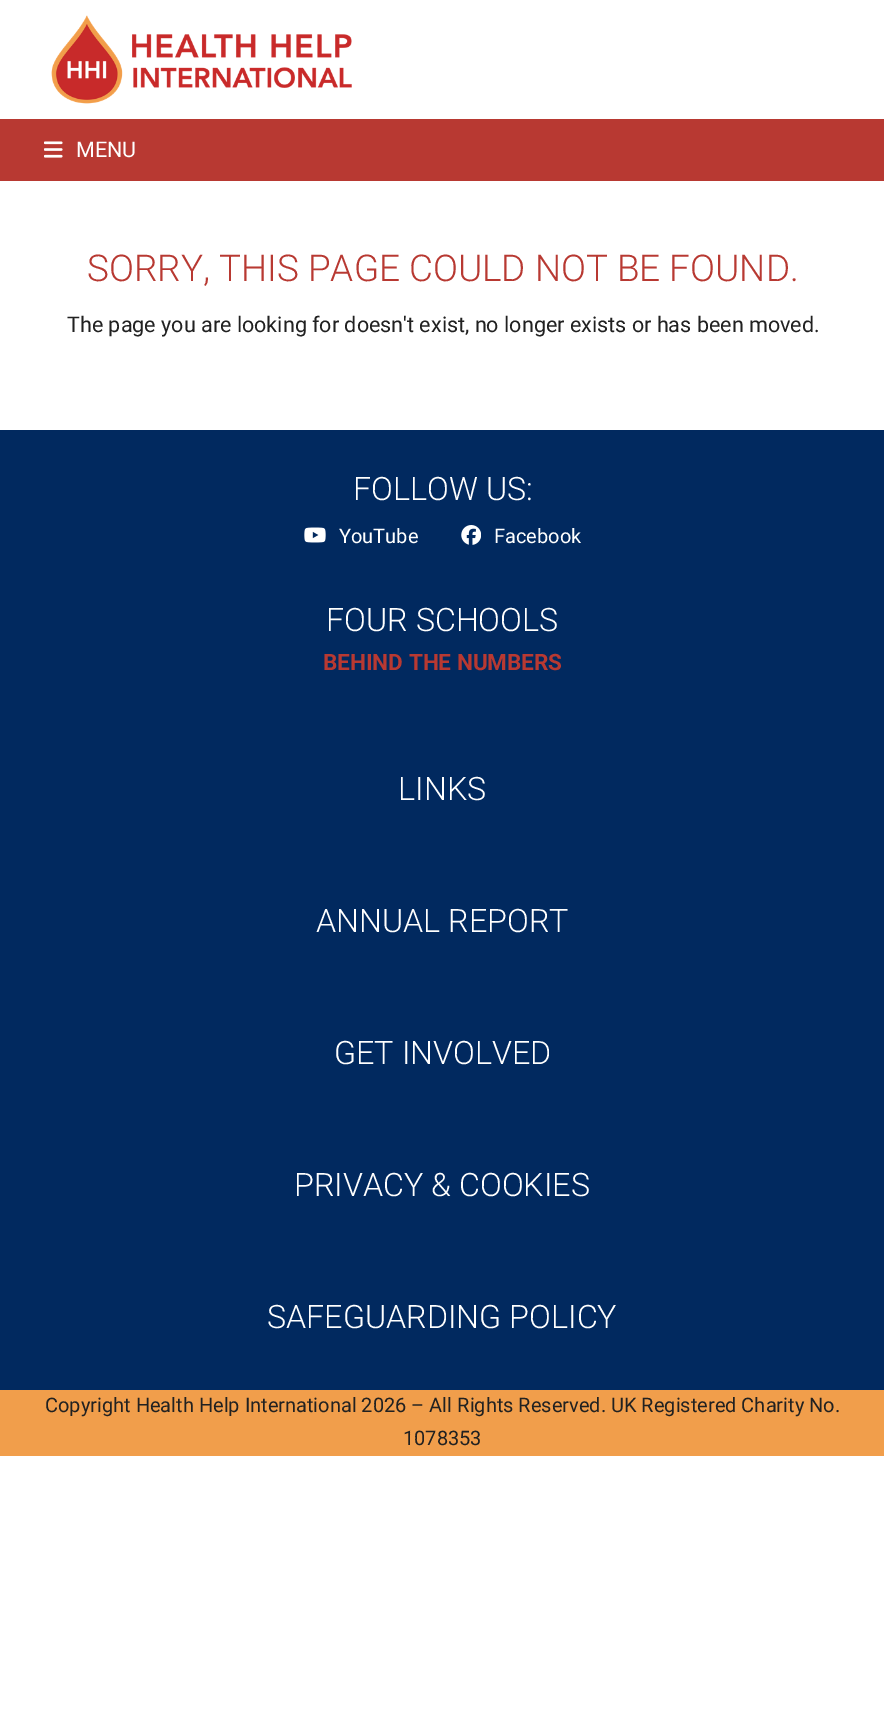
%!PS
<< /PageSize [884 1718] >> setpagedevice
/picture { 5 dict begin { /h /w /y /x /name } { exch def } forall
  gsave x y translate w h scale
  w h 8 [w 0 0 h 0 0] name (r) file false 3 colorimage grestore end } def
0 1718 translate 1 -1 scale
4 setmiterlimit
1 setgray
0 0 884 1718 rectfill
(img1.rgb) 51 15 301 89 picture
0.722 0.224 0.196 setrgbcolor
0 119 884 62 rectfill
(img2.rgb) 44 141 19 17 picture
/Roboto-Regular [21.55 0 0 -21.55 0 0] selectfont
1 setgray
76 157 moveto (MENU) show
/Roboto-Light [36.9 0 0 -36.9 0 0] selectfont
0.722 0.224 0.196 setrgbcolor
87 281 moveto (SORRY, THIS PAGE COULD NOT BE FOUND.) show
/Roboto-Regular [21.55 0 0 -21.55 0 0] selectfont
0.129 setgray
67 332 moveto (The page you are looking for doesn't exist, no longer exists or has been moved.) show
0.004 0.161 0.373 setrgbcolor
0 430 884 960 rectfill
/Roboto-Light [32.25 0 0 -32.25 0 0] selectfont
1 setgray
353 500 moveto (FOLLOW US:) show
(img3.rgb) 304 527 22 16 picture
/Roboto-Regular [20 0 0 -20 0 0] selectfont
339 543 moveto (YouTube) show
(img4.rgb) 461 525 20 20 picture
494 543 moveto (Facebook) show
/Roboto-Light [32.25 0 0 -32.25 0 0] selectfont
326 631 moveto (FOUR SCHOOLS) show
/Roboto-Bold [22.5 0 0 -22.5 0 0] selectfont
0.722 0.224 0.196 setrgbcolor
323 670 moveto (BEHIND THE NUMBERS) show
/Roboto-Light [32.25 0 0 -32.25 0 0] selectfont
1 setgray
398 800 moveto (LINKS) show
316 932 moveto (ANNUAL REPORT) show
334 1064 moveto (GET INVOLVED) show
294 1196 moveto (PRIVACY & COOKIES) show
267 1328 moveto (SAFEGUARDING POLICY) show
0.945 0.62 0.294 setrgbcolor
0 1390 884 66 rectfill
/Roboto-Regular [20 0 0 -20 0 0] selectfont
0.129 setgray
45 1412 moveto (Copyright Health Help International 2026 – All Rights Reserved. UK Registered Charity No.) show
403 1445 moveto (1078353) show
showpage
